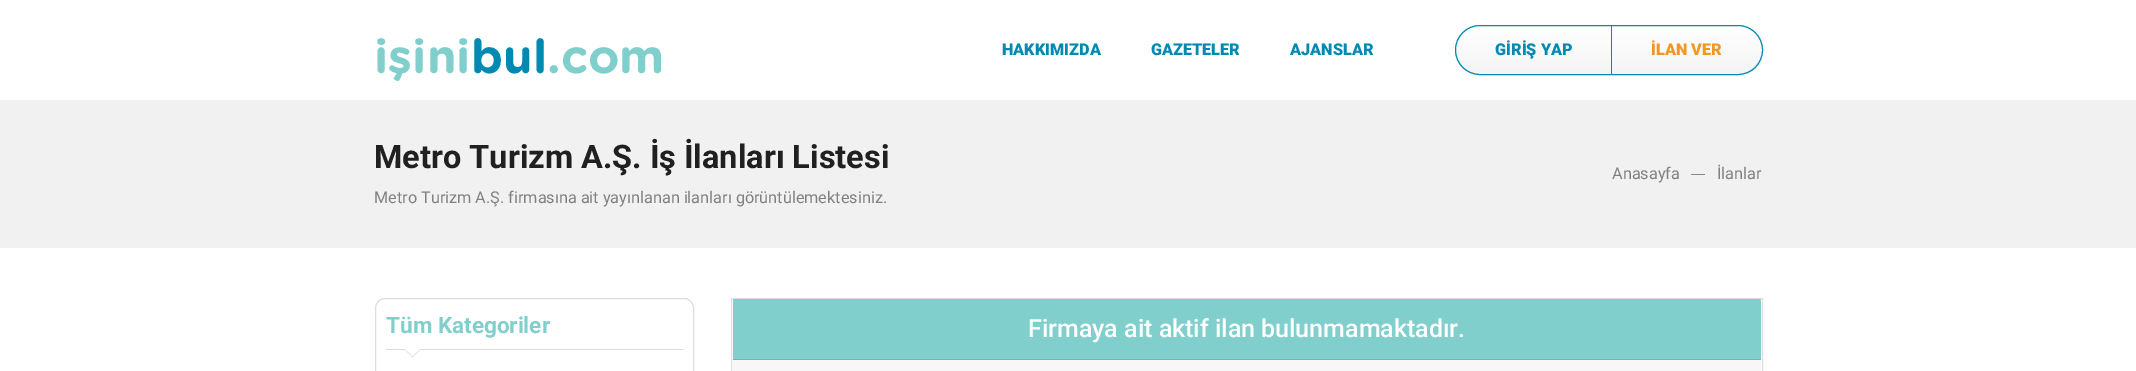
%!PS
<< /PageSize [2136 371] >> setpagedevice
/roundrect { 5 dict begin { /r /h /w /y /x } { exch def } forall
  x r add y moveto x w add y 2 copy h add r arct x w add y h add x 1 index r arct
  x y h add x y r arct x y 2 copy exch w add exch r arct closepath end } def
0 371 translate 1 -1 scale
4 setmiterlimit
1 setgray
0 0 2136 371 rectfill
/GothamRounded-Bold [47.5 0 0 -47.5 0 0] selectfont
0.502 0.812 0.804 setrgbcolor
374 73 moveto (işini) show
0 0.541 0.698 setrgbcolor
471 73 moveto (bul) show
0.502 0.812 0.804 setrgbcolor
547 73 moveto (.com) show
/Roboto-Black [16.25 0 0 -16.25 0 0] selectfont
0 0.541 0.698 setrgbcolor
1002 55 moveto (HAKKIMIZDA) show
1151 55 moveto (GAZETELER) show
1290 55 moveto (AJANSLAR) show
gsave
1455 25 308 50 25 roundrect clip newpath
gsave newpath 1455 26 moveto 1763 26 lineto 1763 74 lineto 1455 74 lineto closepath clip newpath
<< /ShadingType 2 /ColorSpace /DeviceRGB /Coords [1609 26 1609 74] /Extend [true true] /Function << /FunctionType 2 /Domain [0 1] /C0 [1 1 1] /C1 [0.957 0.957 0.957] /N 1 >> >> shfill grestore
grestore
1455.5 25.5 307 49 24.5 roundrect stroke
1495 55 moveto (GİRİŞ YAP) show
1611 26 1 48 rectfill
0.957 0.592 0.122 setrgbcolor
1651 55 moveto (İLAN VER) show
0.945 setgray
0 100 2136 148 rectfill
/Roboto-Bold [32.5 0 0 -32.5 0 0] selectfont
0.125 setgray
374 168 moveto (Metro Turizm A.Ş. İş İlanları Listesi) show
/Roboto-Regular [16.25 0 0 -16.25 0 0] selectfont
0.502 setgray
374 203 moveto (Metro Turizm A.Ş. firmasına ait yayınlanan ilanları görüntülemektesiniz.) show
1612 179 moveto (Anasayfa) show
0.533 setgray
1691 174 14 1 rectfill
0.502 setgray
1717 179 moveto (İlanlar) show
0.867 setgray
375.5 298.5 318 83 9.5 roundrect stroke
386 349 297 1 rectfill
/Roboto-Bold [22.5 0 0 -22.5 0 0] selectfont
0.502 0.812 0.804 setrgbcolor
386 333 moveto (Tüm Kategoriler) show
0.867 setgray
newpath 404 349 moveto 421 349 lineto 412.5 357.5 lineto closepath fill
1 setgray
newpath 405 349 moveto 420 349 lineto 412.5 356 lineto closepath fill
0.875 setgray
731.5 298.5 1031 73 rectstroke
0.502 0.812 0.804 setrgbcolor
733 299 1028 60 rectfill
0.439 0.71 0.702 setrgbcolor
733 359 1028 1 rectfill
/Roboto-Medium [25 0 0 -25 0 0] selectfont
1 setgray
1028 337 moveto (Firmaya ait aktif ilan bulunmamaktadır.) show
0.969 setgray
733 360 1028 11 rectfill
showpage
